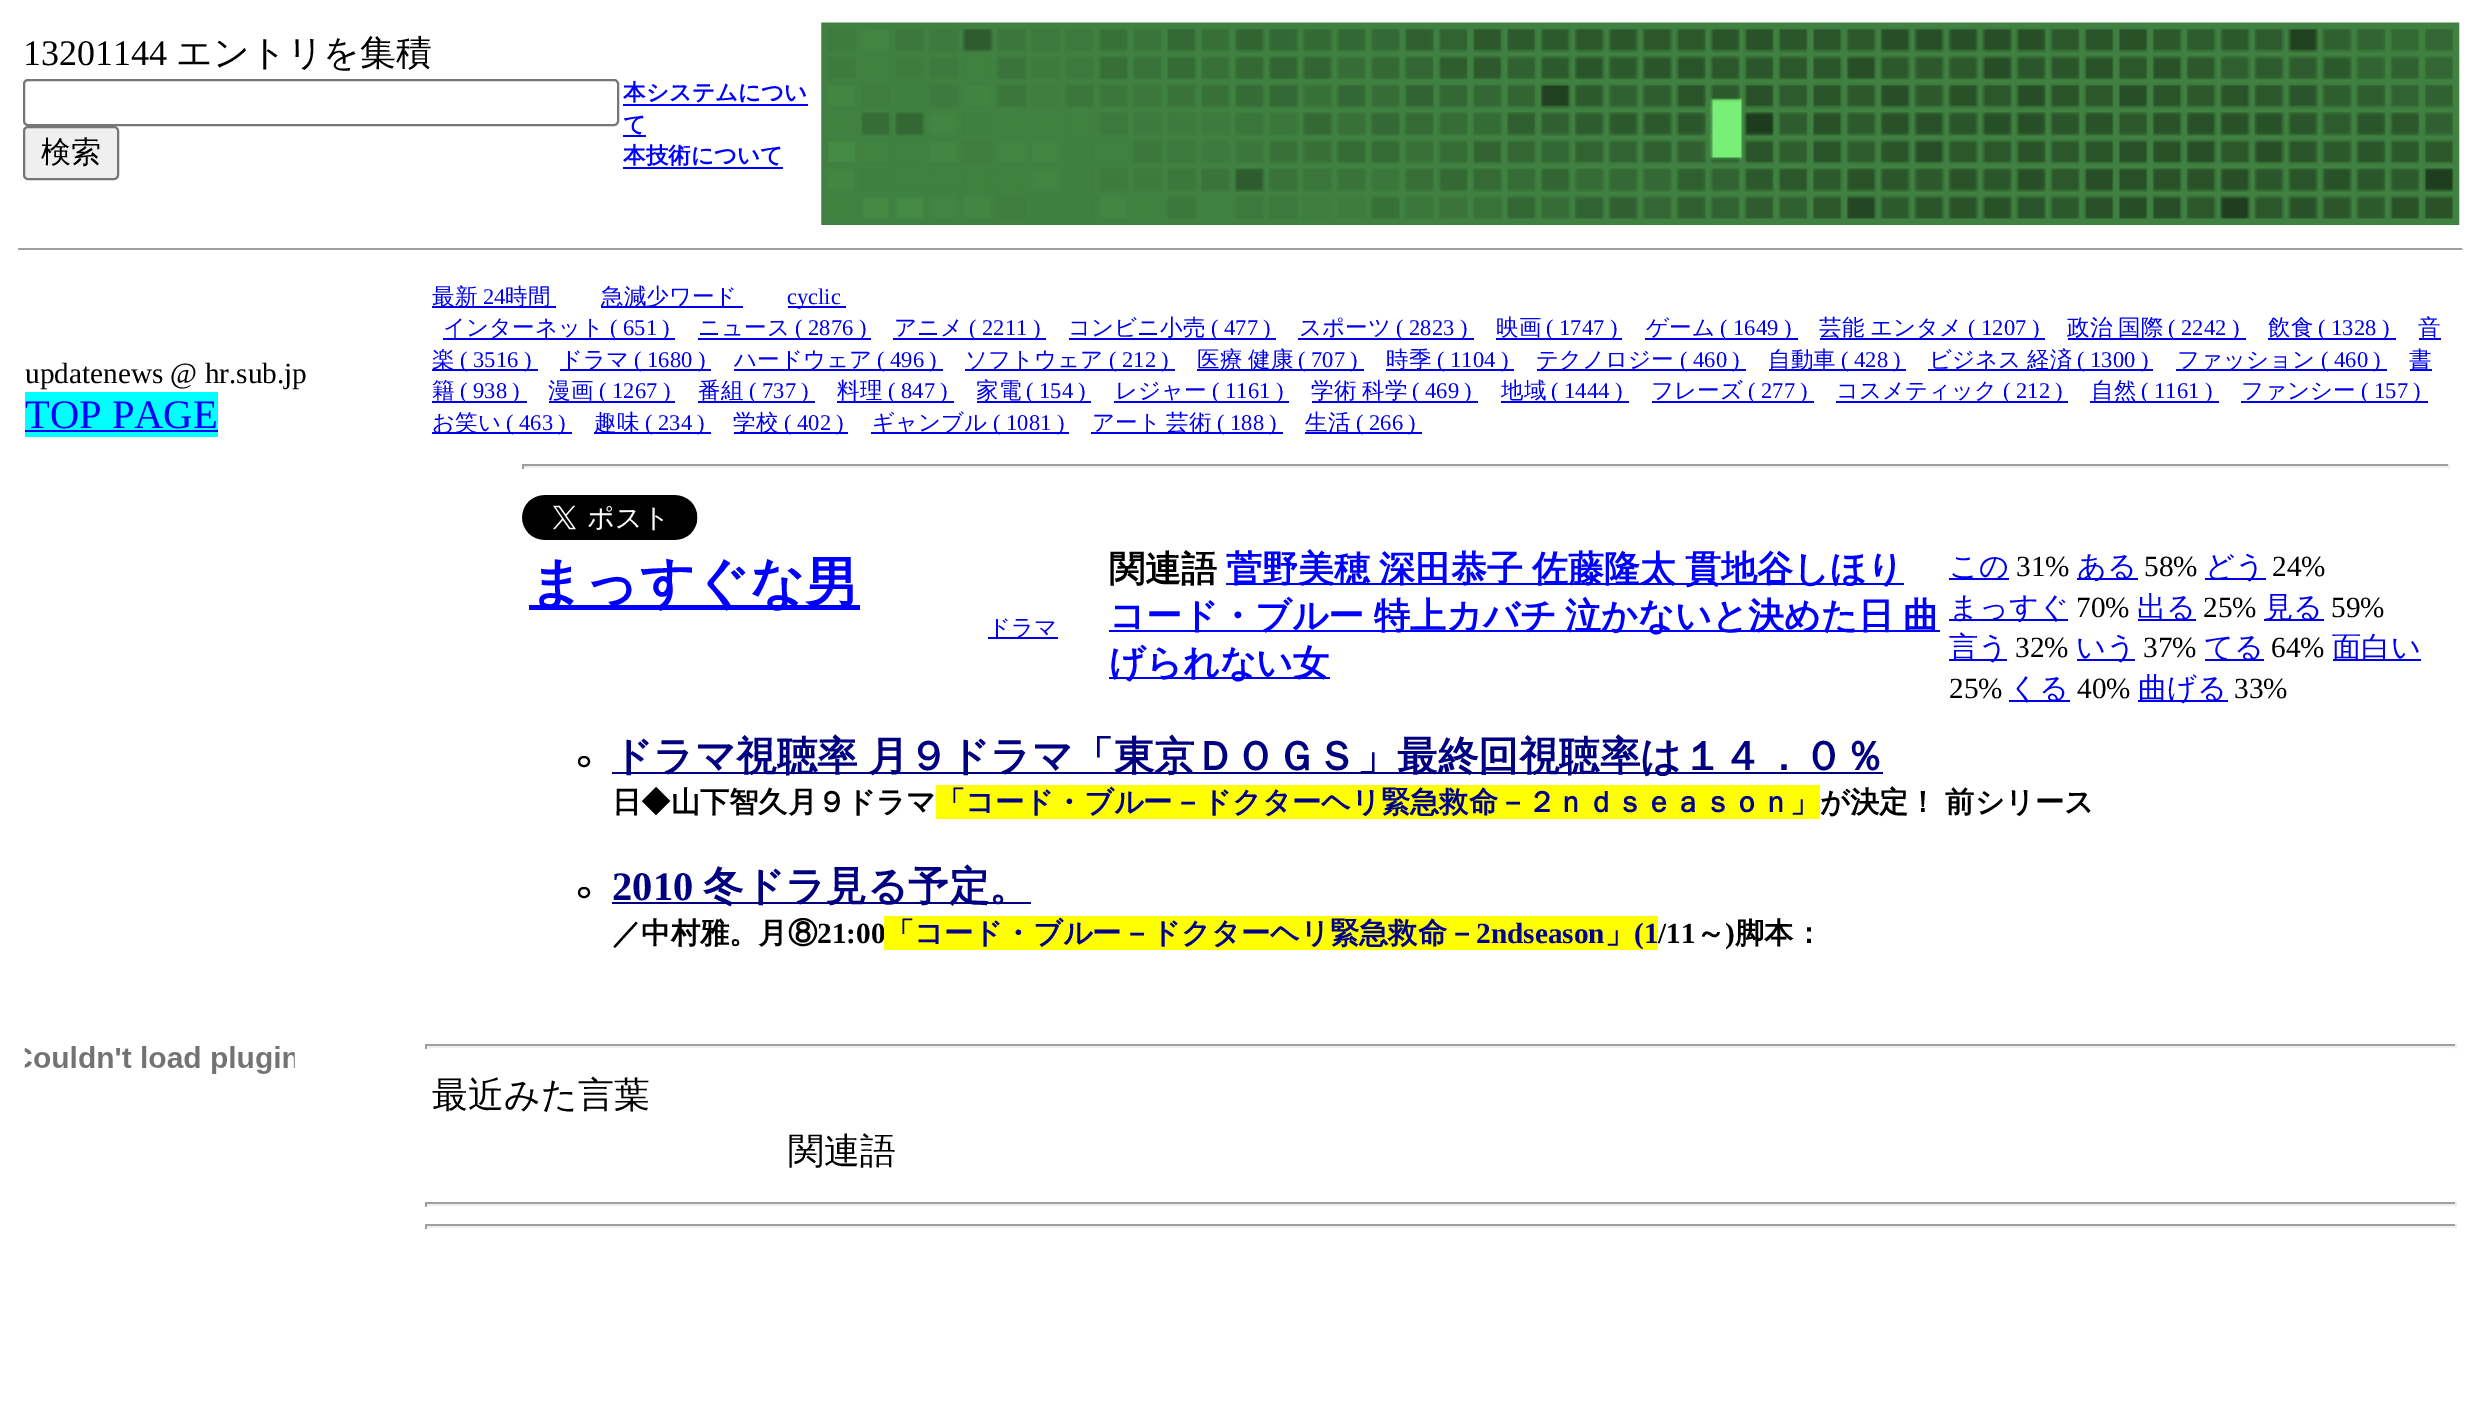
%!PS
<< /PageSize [2481 1414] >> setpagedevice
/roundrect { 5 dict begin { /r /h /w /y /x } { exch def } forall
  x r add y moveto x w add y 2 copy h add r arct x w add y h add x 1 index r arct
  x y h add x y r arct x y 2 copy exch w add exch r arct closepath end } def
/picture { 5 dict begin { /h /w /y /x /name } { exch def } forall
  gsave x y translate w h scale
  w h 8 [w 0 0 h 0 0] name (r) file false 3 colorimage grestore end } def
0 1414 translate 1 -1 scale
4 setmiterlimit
1 setgray
0 0 2481 1414 rectfill
/LiberationSerif-Regular [36 0 0 -36 0 0] selectfont
0 setgray
23 65 moveto (13201144) show
/WenQuanYiZenHei-Medium [36 0 0 -36 0 0] selectfont
176 65 moveto (エントリを集積) show
0.463 setgray
2 setlinewidth
24 80 594 45 4 roundrect stroke
0.937 setgray
24 127 94 52 4 roundrect gsave fill grestore
0.463 setgray
stroke
/WenQuanYiZenHei-Medium [30 0 0 -30 0 0] selectfont
0 setgray
41 162 moveto (検索) show
/WenQuanYiZenHei-Bold [22.5 0 0 -22.5 0 0] selectfont
0 0 1 setrgbcolor
623 100 moveto (本システムについ) show
623 104 185 2 rectfill
623 132 moveto (て) show
623 135 23 2 rectfill
623 163 moveto (本技術について) show
623 167 160 2 rectfill
(img1.rgb) 821 22 1639 203 picture
0.624 setgray
18 248 2446 2 rectfill
0.933 setgray
2462 248 2 2 rectfill
/LiberationSerif-Regular [29.25 0 0 -29.25 0 0] selectfont
0 setgray
25 383 moveto (updatenews @ hr.sub.jp) show
0 1 1 setrgbcolor
25 392 193 45 rectfill
/LiberationSerif-Regular [40.5 0 0 -40.5 0 0] selectfont
0 0 1 setrgbcolor
25 428 moveto (TOP PAGE) show
25 430 193 2 rectfill
(img2.rgb) 24 1046 271 28 picture
0 0 0.933 setrgbcolor
432 306 124 2 rectfill
/WenQuanYiZenHei-Medium [22.5 0 0 -22.5 0 0] selectfont
432 304 moveto (最新) show
/LiberationSerif-Regular [22.5 0 0 -22.5 0 0] selectfont
483 304 moveto (24) show
/WenQuanYiZenHei-Medium [22.5 0 0 -22.5 0 0] selectfont
505 304 moveto (時間) show
601 306 142 2 rectfill
601 304 moveto (急減少ワード) show
788 306 58 2 rectfill
/LiberationSerif-Regular [22.5 0 0 -22.5 0 0] selectfont
787 304 moveto (cyclic) show
443 338 232 2 rectfill
/WenQuanYiZenHei-Medium [22.5 0 0 -22.5 0 0] selectfont
443 335 moveto (インターネット) show
/LiberationSerif-Regular [22.5 0 0 -22.5 0 0] selectfont
610 335 moveto (\( 651 \)) show
/WenQuanYiZenHei-Medium [22.5 0 0 -22.5 0 0] selectfont
698 335 moveto (ニュース) show
698 338 173 2 rectfill
/LiberationSerif-Regular [22.5 0 0 -22.5 0 0] selectfont
795 335 moveto (\( 2876 \)) show
/WenQuanYiZenHei-Medium [22.5 0 0 -22.5 0 0] selectfont
894 335 moveto (アニメ) show
893 338 153 2 rectfill
/LiberationSerif-Regular [22.5 0 0 -22.5 0 0] selectfont
969 335 moveto (\( 2211 \)) show
/WenQuanYiZenHei-Medium [22.5 0 0 -22.5 0 0] selectfont
1068 335 moveto (コンビニ小売) show
1069 338 207 2 rectfill
/LiberationSerif-Regular [22.5 0 0 -22.5 0 0] selectfont
1211 335 moveto (\( 477 \)) show
/WenQuanYiZenHei-Medium [22.5 0 0 -22.5 0 0] selectfont
1299 335 moveto (スポーツ) show
1298 338 176 2 rectfill
/LiberationSerif-Regular [22.5 0 0 -22.5 0 0] selectfont
1396 335 moveto (\( 2823 \)) show
/WenQuanYiZenHei-Medium [22.5 0 0 -22.5 0 0] selectfont
1496 335 moveto (映画) show
1496 338 126 2 rectfill
/LiberationSerif-Regular [22.5 0 0 -22.5 0 0] selectfont
1546 335 moveto (\( 1747 \)) show
/WenQuanYiZenHei-Medium [22.5 0 0 -22.5 0 0] selectfont
1646 335 moveto (ゲーム) show
1645 338 153 2 rectfill
/LiberationSerif-Regular [22.5 0 0 -22.5 0 0] selectfont
1720 335 moveto (\( 1649 \)) show
1820 338 225 2 rectfill
/WenQuanYiZenHei-Medium [22.5 0 0 -22.5 0 0] selectfont
1819 335 moveto (芸能) show
1870 335 moveto (エンタメ) show
/LiberationSerif-Regular [22.5 0 0 -22.5 0 0] selectfont
1968 335 moveto (\( 1207 \)) show
2068 338 178 2 rectfill
/WenQuanYiZenHei-Medium [22.5 0 0 -22.5 0 0] selectfont
2067 335 moveto (政治) show
2118 335 moveto (国際) show
/LiberationSerif-Regular [22.5 0 0 -22.5 0 0] selectfont
2168 335 moveto (\( 2242 \)) show
/WenQuanYiZenHei-Medium [22.5 0 0 -22.5 0 0] selectfont
2268 335 moveto (飲食) show
2268 338 128 2 rectfill
/LiberationSerif-Regular [22.5 0 0 -22.5 0 0] selectfont
2318 335 moveto (\( 1328 \)) show
/WenQuanYiZenHei-Medium [22.5 0 0 -22.5 0 0] selectfont
2418 335 moveto (音) show
2419 338 22 2 rectfill
432 369 106 2 rectfill
432 367 moveto (楽) show
/LiberationSerif-Regular [22.5 0 0 -22.5 0 0] selectfont
460 367 moveto (\( 3516 \)) show
560 369 151 2 rectfill
/WenQuanYiZenHei-Medium [22.5 0 0 -22.5 0 0] selectfont
560 367 moveto (ドラマ) show
/LiberationSerif-Regular [22.5 0 0 -22.5 0 0] selectfont
634 367 moveto (\( 1680 \)) show
734 369 209 2 rectfill
/WenQuanYiZenHei-Medium [22.5 0 0 -22.5 0 0] selectfont
734 367 moveto (ハードウェア) show
/LiberationSerif-Regular [22.5 0 0 -22.5 0 0] selectfont
877 367 moveto (\( 496 \)) show
965 369 210 2 rectfill
/WenQuanYiZenHei-Medium [22.5 0 0 -22.5 0 0] selectfont
965 367 moveto (ソフトウェア) show
/LiberationSerif-Regular [22.5 0 0 -22.5 0 0] selectfont
1109 367 moveto (\( 212 \)) show
1197 369 167 2 rectfill
/WenQuanYiZenHei-Medium [22.5 0 0 -22.5 0 0] selectfont
1197 367 moveto (医療) show
1248 367 moveto (健康) show
/LiberationSerif-Regular [22.5 0 0 -22.5 0 0] selectfont
1298 367 moveto (\( 707 \)) show
1386 369 128 2 rectfill
/WenQuanYiZenHei-Medium [22.5 0 0 -22.5 0 0] selectfont
1386 367 moveto (時季) show
/LiberationSerif-Regular [22.5 0 0 -22.5 0 0] selectfont
1437 367 moveto (\( 1104 \)) show
1537 369 209 2 rectfill
/WenQuanYiZenHei-Medium [22.5 0 0 -22.5 0 0] selectfont
1536 367 moveto (テクノロジー) show
/LiberationSerif-Regular [22.5 0 0 -22.5 0 0] selectfont
1680 367 moveto (\( 460 \)) show
1769 369 137 2 rectfill
/WenQuanYiZenHei-Medium [22.5 0 0 -22.5 0 0] selectfont
1768 367 moveto (自動車) show
/LiberationSerif-Regular [22.5 0 0 -22.5 0 0] selectfont
1841 367 moveto (\( 428 \)) show
1928 369 225 2 rectfill
/WenQuanYiZenHei-Medium [22.5 0 0 -22.5 0 0] selectfont
1929 367 moveto (ビジネス) show
2027 367 moveto (経済) show
/LiberationSerif-Regular [22.5 0 0 -22.5 0 0] selectfont
2077 367 moveto (\( 1300 \)) show
2176 369 211 2 rectfill
/WenQuanYiZenHei-Medium [22.5 0 0 -22.5 0 0] selectfont
2177 367 moveto (ファッション) show
/LiberationSerif-Regular [22.5 0 0 -22.5 0 0] selectfont
2321 367 moveto (\( 460 \)) show
2410 369 22 2 rectfill
/WenQuanYiZenHei-Medium [22.5 0 0 -22.5 0 0] selectfont
2409 367 moveto (書) show
432 398 moveto (籍) show
432 401 95 2 rectfill
/LiberationSerif-Regular [22.5 0 0 -22.5 0 0] selectfont
460 398 moveto (\( 938 \)) show
/WenQuanYiZenHei-Medium [22.5 0 0 -22.5 0 0] selectfont
548 398 moveto (漫画) show
549 401 126 2 rectfill
/LiberationSerif-Regular [22.5 0 0 -22.5 0 0] selectfont
599 398 moveto (\( 1267 \)) show
/WenQuanYiZenHei-Medium [22.5 0 0 -22.5 0 0] selectfont
698 398 moveto (番組) show
698 401 117 2 rectfill
/LiberationSerif-Regular [22.5 0 0 -22.5 0 0] selectfont
749 398 moveto (\( 737 \)) show
/WenQuanYiZenHei-Medium [22.5 0 0 -22.5 0 0] selectfont
837 398 moveto (料理) show
837 401 117 2 rectfill
/LiberationSerif-Regular [22.5 0 0 -22.5 0 0] selectfont
888 398 moveto (\( 847 \)) show
977 401 114 2 rectfill
/WenQuanYiZenHei-Medium [22.5 0 0 -22.5 0 0] selectfont
976 398 moveto (家電) show
/LiberationSerif-Regular [22.5 0 0 -22.5 0 0] selectfont
1026 398 moveto (\( 154 \)) show
/WenQuanYiZenHei-Medium [22.5 0 0 -22.5 0 0] selectfont
1115 398 moveto (レジャー) show
1114 401 175 2 rectfill
/LiberationSerif-Regular [22.5 0 0 -22.5 0 0] selectfont
1212 398 moveto (\( 1161 \)) show
/WenQuanYiZenHei-Medium [22.5 0 0 -22.5 0 0] selectfont
1311 398 moveto (学術) show
1362 398 moveto (科学) show
1312 401 166 2 rectfill
/LiberationSerif-Regular [22.5 0 0 -22.5 0 0] selectfont
1412 398 moveto (\( 469 \)) show
/WenQuanYiZenHei-Medium [22.5 0 0 -22.5 0 0] selectfont
1501 398 moveto (地域) show
1501 401 128 2 rectfill
/LiberationSerif-Regular [22.5 0 0 -22.5 0 0] selectfont
1551 398 moveto (\( 1444 \)) show
/WenQuanYiZenHei-Medium [22.5 0 0 -22.5 0 0] selectfont
1651 398 moveto (フレーズ) show
1652 401 162 2 rectfill
/LiberationSerif-Regular [22.5 0 0 -22.5 0 0] selectfont
1748 398 moveto (\( 277 \)) show
/WenQuanYiZenHei-Medium [22.5 0 0 -22.5 0 0] selectfont
1836 398 moveto (コスメティック) show
1836 401 232 2 rectfill
/LiberationSerif-Regular [22.5 0 0 -22.5 0 0] selectfont
2003 398 moveto (\( 212 \)) show
2090 401 129 2 rectfill
/WenQuanYiZenHei-Medium [22.5 0 0 -22.5 0 0] selectfont
2091 398 moveto (自然) show
/LiberationSerif-Regular [22.5 0 0 -22.5 0 0] selectfont
2141 398 moveto (\( 1161 \)) show
/WenQuanYiZenHei-Medium [22.5 0 0 -22.5 0 0] selectfont
2241 398 moveto (ファンシー) show
2241 401 187 2 rectfill
/LiberationSerif-Regular [22.5 0 0 -22.5 0 0] selectfont
2361 398 moveto (\( 157 \)) show
432 432 140 2 rectfill
/WenQuanYiZenHei-Medium [22.5 0 0 -22.5 0 0] selectfont
432 430 moveto (お笑い) show
/LiberationSerif-Regular [22.5 0 0 -22.5 0 0] selectfont
506 430 moveto (\( 463 \)) show
594 432 117 2 rectfill
/WenQuanYiZenHei-Medium [22.5 0 0 -22.5 0 0] selectfont
594 430 moveto (趣味) show
/LiberationSerif-Regular [22.5 0 0 -22.5 0 0] selectfont
645 430 moveto (\( 234 \)) show
734 432 114 2 rectfill
/WenQuanYiZenHei-Medium [22.5 0 0 -22.5 0 0] selectfont
733 430 moveto (学校) show
/LiberationSerif-Regular [22.5 0 0 -22.5 0 0] selectfont
784 430 moveto (\( 402 \)) show
871 432 198 2 rectfill
/WenQuanYiZenHei-Medium [22.5 0 0 -22.5 0 0] selectfont
872 430 moveto (ギャンブル) show
/LiberationSerif-Regular [22.5 0 0 -22.5 0 0] selectfont
993 430 moveto (\( 1081 \)) show
1091 432 192 2 rectfill
/WenQuanYiZenHei-Medium [22.5 0 0 -22.5 0 0] selectfont
1092 430 moveto (アート) show
1166 430 moveto (芸術) show
/LiberationSerif-Regular [22.5 0 0 -22.5 0 0] selectfont
1217 430 moveto (\( 188 \)) show
1305 432 117 2 rectfill
/WenQuanYiZenHei-Medium [22.5 0 0 -22.5 0 0] selectfont
1305 430 moveto (生活) show
/LiberationSerif-Regular [22.5 0 0 -22.5 0 0] selectfont
1356 430 moveto (\( 266 \)) show
0.624 setgray
522 464 1928 2 rectfill
0.933 setgray
2448 464 2 5 rectfill
522 466 1928 2 rectfill
0.624 setgray
522 464 2 5 rectfill
(img3.rgb) 522 495 176 45 picture
0 0 1 setrgbcolor
529 605 331 5 rectfill
/WenQuanYiZenHei-Bold [54 0 0 -54 0 0] selectfont
529 601 moveto (まっすぐな男) show
/WenQuanYiZenHei-Bold [36 0 0 -36 0 0] selectfont
0 setgray
1109 581 moveto (関連語) show
0 0 1 setrgbcolor
1226 583 678 2 rectfill
1226 581 moveto (菅野美穂) show
1379 581 moveto (深田恭子) show
1532 581 moveto (佐藤隆太) show
1685 581 moveto (貫地谷しほり) show
1109 630 831 2 rectfill
1109 628 moveto (コード・ブルー) show
1374 628 moveto (特上カバチ) show
1565 628 moveto (泣かないと決めた日) show
1903 628 moveto (曲) show
1109 677 221 2 rectfill
1109 675 moveto (げられない女) show
0 0 0.933 setrgbcolor
1949 578 60 2 rectfill
/WenQuanYiZenHei-Medium [29.25 0 0 -29.25 0 0] selectfont
1949 576 moveto (この) show
/LiberationSerif-Regular [29.25 0 0 -29.25 0 0] selectfont
0 setgray
2016 576 moveto (31%) show
0 0 0.933 setrgbcolor
2077 578 61 2 rectfill
/WenQuanYiZenHei-Medium [29.25 0 0 -29.25 0 0] selectfont
2077 576 moveto (ある) show
/LiberationSerif-Regular [29.25 0 0 -29.25 0 0] selectfont
0 setgray
2144 576 moveto (58%) show
0 0 0.933 setrgbcolor
2205 578 61 2 rectfill
/WenQuanYiZenHei-Medium [29.25 0 0 -29.25 0 0] selectfont
2205 576 moveto (どう) show
/LiberationSerif-Regular [29.25 0 0 -29.25 0 0] selectfont
0 setgray
2272 576 moveto (24%) show
0 0 0.933 setrgbcolor
1949 619 119 2 rectfill
/WenQuanYiZenHei-Medium [29.25 0 0 -29.25 0 0] selectfont
1949 617 moveto (まっすぐ) show
/LiberationSerif-Regular [29.25 0 0 -29.25 0 0] selectfont
0 setgray
2076 617 moveto (70%) show
0 0 0.933 setrgbcolor
2138 619 58 2 rectfill
/WenQuanYiZenHei-Medium [29.25 0 0 -29.25 0 0] selectfont
2137 617 moveto (出る) show
/LiberationSerif-Regular [29.25 0 0 -29.25 0 0] selectfont
0 setgray
2203 617 moveto (25%) show
0 0 0.933 setrgbcolor
2264 619 60 2 rectfill
/WenQuanYiZenHei-Medium [29.25 0 0 -29.25 0 0] selectfont
2264 617 moveto (見る) show
/LiberationSerif-Regular [29.25 0 0 -29.25 0 0] selectfont
0 setgray
2331 617 moveto (59%) show
0 0 0.933 setrgbcolor
1949 659 58 2 rectfill
/WenQuanYiZenHei-Medium [29.25 0 0 -29.25 0 0] selectfont
1949 657 moveto (言う) show
/LiberationSerif-Regular [29.25 0 0 -29.25 0 0] selectfont
0 setgray
2015 657 moveto (32%) show
0 0 0.933 setrgbcolor
2077 659 58 2 rectfill
/WenQuanYiZenHei-Medium [29.25 0 0 -29.25 0 0] selectfont
2076 657 moveto (いう) show
/LiberationSerif-Regular [29.25 0 0 -29.25 0 0] selectfont
0 setgray
2143 657 moveto (37%) show
0 0 0.933 setrgbcolor
2205 659 59 2 rectfill
/WenQuanYiZenHei-Medium [29.25 0 0 -29.25 0 0] selectfont
2204 657 moveto (てる) show
/LiberationSerif-Regular [29.25 0 0 -29.25 0 0] selectfont
0 setgray
2271 657 moveto (64%) show
0 0 0.933 setrgbcolor
2333 659 88 2 rectfill
/WenQuanYiZenHei-Medium [29.25 0 0 -29.25 0 0] selectfont
2332 657 moveto (面白い) show
/LiberationSerif-Regular [29.25 0 0 -29.25 0 0] selectfont
0 setgray
1949 698 moveto (25%) show
0 0 0.933 setrgbcolor
2009 700 61 2 rectfill
/WenQuanYiZenHei-Medium [29.25 0 0 -29.25 0 0] selectfont
2009 698 moveto (くる) show
/LiberationSerif-Regular [29.25 0 0 -29.25 0 0] selectfont
0 setgray
2077 698 moveto (40%) show
0 0 0.933 setrgbcolor
2138 700 90 2 rectfill
/WenQuanYiZenHei-Medium [29.25 0 0 -29.25 0 0] selectfont
2138 698 moveto (曲げる) show
/LiberationSerif-Regular [29.25 0 0 -29.25 0 0] selectfont
0 setgray
2234 698 moveto (33%) show
0 0 0.933 setrgbcolor
988 637 70 2 rectfill
/WenQuanYiZenHei-Medium [22.5 0 0 -22.5 0 0] selectfont
988 635 moveto (ドラマ) show
0 setgray
579 757 10 9 4.5 roundrect stroke
0 0 0.502 setrgbcolor
612 772 1271 2 rectfill
/WenQuanYiZenHei-Bold [40.5 0 0 -40.5 0 0] selectfont
612 770 moveto -2 0 32 (ドラマ視聴率 月９ドラマ「東京ＤＯＧＳ」最終回視聴率は１４．０％) widthshow
/WenQuanYiZenHei-Bold [29.25 0 0 -29.25 0 0] selectfont
0 setgray
612 812 moveto (日◆山下智久月９ドラマ) show
1 1 0 setrgbcolor
936 785 884 34 rectfill
0 0 0.545 setrgbcolor
936 812 moveto (「コード・ブルー－ドクターヘリ緊急救命－２ｎｄｓｅａｓｏｎ」) show
0 setgray
1820 812 moveto -1 0 32 (が決定！ 前シリース) widthshow
579 888 10 9 4.5 roundrect stroke
/LiberationSerif-Bold [40.5 0 0 -40.5 0 0] selectfont
0 0 0.502 setrgbcolor
612 900 moveto (2010) show
612 902 419 2 rectfill
/WenQuanYiZenHei-Bold [40.5 0 0 -40.5 0 0] selectfont
703 900 moveto (冬ドラ見る予定。) show
/WenQuanYiZenHei-Bold [29.25 0 0 -29.25 0 0] selectfont
0 setgray
612 943 moveto (／中村雅。月⑧) show
/LiberationSerif-Bold [29.25 0 0 -29.25 0 0] selectfont
817 943 moveto (21:00) show
1 1 0 setrgbcolor
884 916 774 34 rectfill
/WenQuanYiZenHei-Bold [29.25 0 0 -29.25 0 0] selectfont
0 0 0.545 setrgbcolor
885 943 moveto (「コード・ブルー－ドクターヘリ緊急救命－) show
/LiberationSerif-Bold [29.25 0 0 -29.25 0 0] selectfont
1476 943 moveto (2ndseason) show
/WenQuanYiZenHei-Bold [29.25 0 0 -29.25 0 0] selectfont
1605 943 moveto (」) show
/LiberationSerif-Bold [29.25 0 0 -29.25 0 0] selectfont
1634 943 moveto (\(1) show
0 setgray
1658 943 moveto (/11) show
/WenQuanYiZenHei-Bold [29.25 0 0 -29.25 0 0] selectfont
1696 943 moveto (～) show
/LiberationSerif-Bold [29.25 0 0 -29.25 0 0] selectfont
1725 943 moveto (\)) show
/WenQuanYiZenHei-Bold [29.25 0 0 -29.25 0 0] selectfont
1735 943 moveto (脚本：) show
0.624 setgray
425 1044 2032 2 rectfill
0.933 setgray
2455 1044 2 5 rectfill
425 1046 2032 2 rectfill
0.624 setgray
425 1044 2 5 rectfill
/WenQuanYiZenHei-Medium [36 0 0 -36 0 0] selectfont
0 setgray
432 1107 moveto (最近みた言葉) show
788 1163 moveto (関連語) show
0.624 setgray
425 1202 2032 2 rectfill
0.933 setgray
2455 1202 2 5 rectfill
425 1204 2032 2 rectfill
0.624 setgray
425 1202 2 5 rectfill
425 1224 2032 2 rectfill
0.933 setgray
2455 1224 2 5 rectfill
425 1226 2032 2 rectfill
0.624 setgray
425 1224 2 5 rectfill
showpage
